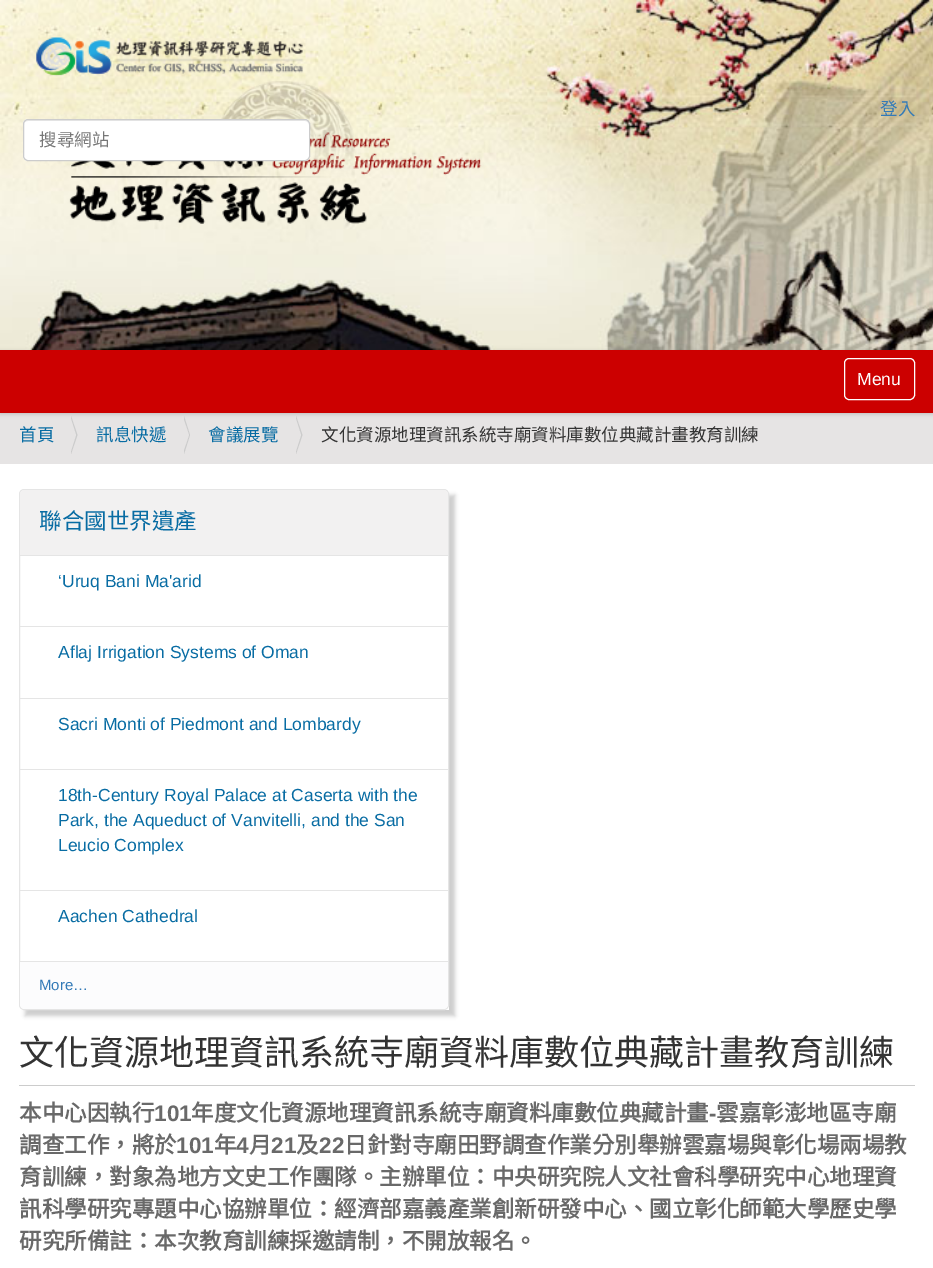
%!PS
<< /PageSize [933 1268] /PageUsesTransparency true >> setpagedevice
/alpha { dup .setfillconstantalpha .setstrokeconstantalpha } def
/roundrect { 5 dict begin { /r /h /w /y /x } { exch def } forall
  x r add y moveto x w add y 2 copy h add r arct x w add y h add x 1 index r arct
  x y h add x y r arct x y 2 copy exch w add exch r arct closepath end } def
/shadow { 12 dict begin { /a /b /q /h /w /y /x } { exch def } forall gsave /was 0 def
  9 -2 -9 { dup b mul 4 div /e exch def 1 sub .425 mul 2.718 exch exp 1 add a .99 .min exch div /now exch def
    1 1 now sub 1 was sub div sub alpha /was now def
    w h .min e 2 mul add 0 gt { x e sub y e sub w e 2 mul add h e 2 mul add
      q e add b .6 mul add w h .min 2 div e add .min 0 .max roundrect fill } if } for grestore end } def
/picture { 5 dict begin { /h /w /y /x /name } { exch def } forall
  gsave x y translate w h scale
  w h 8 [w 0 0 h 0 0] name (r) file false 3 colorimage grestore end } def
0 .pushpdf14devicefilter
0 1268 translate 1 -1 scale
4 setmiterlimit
1 setgray
0 0 933 1268 rectfill
(img1.rgb) 0 0 933 350 picture
(img2.rgb) 36 37 267 39 picture
(img3.rgb) 69 81 413 143 picture
/NotoSansCJKTC-Regular [17.5 0 0 -17.5 0 0] selectfont
0.2 0.478 0.718 setrgbcolor
880 115 moveto (登入) show
1 setgray
23 119 287 42 5 roundrect fill
0.925 setgray
newpath 28 121 moveto 305 121 lineto 307 121 309 123 309 125 curveto 309 122 308 120 305 120 curveto 28 120 lineto 25 120 24 122 24 125 curveto 24 123 25 121 28 121 curveto closepath fill
0.8 setgray
23.5 119.5 286 41 4.5 roundrect stroke
0.467 setgray
39 146 moveto (搜尋網站) show
0.902 0.894 0.894 setrgbcolor
0 413 933 51 rectfill
0 setgray
0 351 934 63 0 2 0.17 shadow
0.8 0 0 setrgbcolor
0 350 933 63 rectfill
1 setgray
844.5 358.5 70 41 4.5 roundrect stroke
/LiberationSans-Regular [17.5 0 0 -17.5 0 0] selectfont
857 385 moveto (Menu) show
/NotoSansCJKTC-Regular [17.5 0 0 -17.5 0 0] selectfont
0.031 0.424 0.639 setrgbcolor
19 441 moveto (首頁) show
0.8 setgray
newpath 71 454 moveto 71 416 lineto 77.5 435 lineto closepath fill
0.902 0.894 0.894 setrgbcolor
newpath 70 454 moveto 70 416 lineto 76 435 lineto closepath fill
0.031 0.424 0.639 setrgbcolor
96 441 moveto (訊息快遞) show
0.8 setgray
newpath 184 454 moveto 184 416 lineto 190 435 lineto closepath fill
0.902 0.894 0.894 setrgbcolor
newpath 182.5 454 moveto 182.5 416 lineto 189 435 lineto closepath fill
0.031 0.424 0.639 setrgbcolor
208 441 moveto (會議展覽) show
0.8 setgray
newpath 296 454 moveto 296 416 lineto 302.5 435 lineto closepath fill
0.902 0.894 0.894 setrgbcolor
newpath 295 454 moveto 295 416 lineto 301 435 lineto closepath fill
0.2 setgray
321 441 moveto (文化資源地理資訊系統寺廟資料庫數位典藏計畫教育訓練) show
gsave
newpath 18 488 moveto 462 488 lineto 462 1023 lineto 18 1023 lineto closepath 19 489 moveto 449 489 lineto 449 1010 lineto 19 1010 lineto closepath eoclip newpath
0.8 setgray
25 495 430 521 0 2 1 shadow
grestore
0.898 setgray
19.5 489.5 429 520 4.5 roundrect stroke
0.949 0.945 0.945 setrgbcolor
newpath 25 490 moveto 443 490 lineto 446 490 448 492 448 495 curveto 448 555 lineto 20 555 lineto 20 495 lineto 20 492 22 490 25 490 curveto closepath fill
/NotoSansCJKTC-Regular [22.5 0 0 -22.5 0 0] selectfont
0.031 0.424 0.639 setrgbcolor
39 529 moveto (聯合國世界遺產) show
0.898 setgray
20 555 428 1 rectfill
/LiberationSans-Regular [17.5 0 0 -17.5 0 0] selectfont
0.031 0.424 0.639 setrgbcolor
58 587 moveto (‘Uruq Bani Ma'arid) show
0.898 setgray
20 626 428 1 rectfill
0.031 0.424 0.639 setrgbcolor
58 658 moveto (Aflaj Irrigation Systems of Oman) show
0.898 setgray
20 698 428 1 rectfill
0.031 0.424 0.639 setrgbcolor
58 730 moveto (Sacri Monti of Piedmont and Lombardy) show
0.898 setgray
20 769 428 1 rectfill
0.031 0.424 0.639 setrgbcolor
58 801 moveto (18th-Century Royal Palace at Caserta with the) show
58 826 moveto (Park, the Aqueduct of Vanvitelli, and the San) show
58 851 moveto (Leucio Complex) show
0.898 setgray
20 890 428 1 rectfill
0.031 0.424 0.639 setrgbcolor
58 922 moveto (Aachen Cathedral) show
0.988 0.988 0.992 setrgbcolor
newpath 20 961 moveto 448 961 lineto 448 1004 lineto 448 1007 446 1009 443 1009 curveto 25 1009 lineto 22 1009 20 1007 20 1004 curveto closepath fill
0.898 setgray
20 961 428 1 rectfill
/LiberationSans-Regular [15 0 0 -15 0 0] selectfont
0.2 0.478 0.718 setrgbcolor
39 990 moveto (More…) show
0.8 setgray
19 1085 896 1 rectfill
/NotoSansCJKTC-Regular [35 0 0 -35 0 0] selectfont
0.2 setgray
19 1065 moveto (文化資源地理資訊系統寺廟資料庫數位典藏計畫教育訓練) show
/NotoSansCJKTC-Bold [22.5 0 0 -22.5 0 0] selectfont
0.412 setgray
19 1121 moveto (本中心因執行) show
/LiberationSans-Bold [22.5 0 0 -22.5 0 0] selectfont
154 1121 moveto (101) show
/NotoSansCJKTC-Bold [22.5 0 0 -22.5 0 0] selectfont
191 1121 moveto (年度文化資源地理資訊系統寺廟資料庫數位典藏計畫) show
/LiberationSans-Bold [22.5 0 0 -22.5 0 0] selectfont
709 1121 moveto (-) show
/NotoSansCJKTC-Bold [22.5 0 0 -22.5 0 0] selectfont
716 1121 moveto (雲嘉彰澎地區寺廟) show
19 1153 moveto (調查工作，將於) show
/LiberationSans-Bold [22.5 0 0 -22.5 0 0] selectfont
176 1153 moveto (101) show
/NotoSansCJKTC-Bold [22.5 0 0 -22.5 0 0] selectfont
214 1153 moveto (年) show
/LiberationSans-Bold [22.5 0 0 -22.5 0 0] selectfont
236 1153 moveto (4) show
/NotoSansCJKTC-Bold [22.5 0 0 -22.5 0 0] selectfont
249 1153 moveto (月) show
/LiberationSans-Bold [22.5 0 0 -22.5 0 0] selectfont
271 1153 moveto (21) show
/NotoSansCJKTC-Bold [22.5 0 0 -22.5 0 0] selectfont
296 1153 moveto (及) show
/LiberationSans-Bold [22.5 0 0 -22.5 0 0] selectfont
319 1153 moveto (22) show
/NotoSansCJKTC-Bold [22.5 0 0 -22.5 0 0] selectfont
344 1153 moveto (日針對寺廟田野調查作業分別舉辦雲嘉場與彰化場兩場教) show
19 1185 moveto (育訓練，對象為地方文史工作團隊。主辦單位：中央研究院人文社會科學研究中心地理資) show
19 1217 moveto (訊科學研究專題中心協辦單位：經濟部嘉義產業創新研發中心、國立彰化師範大學歷史學) show
19 1249 moveto (研究所備註：本次教育訓練採邀請制，不開放報名。) show
.poppdf14devicefilter showpage
